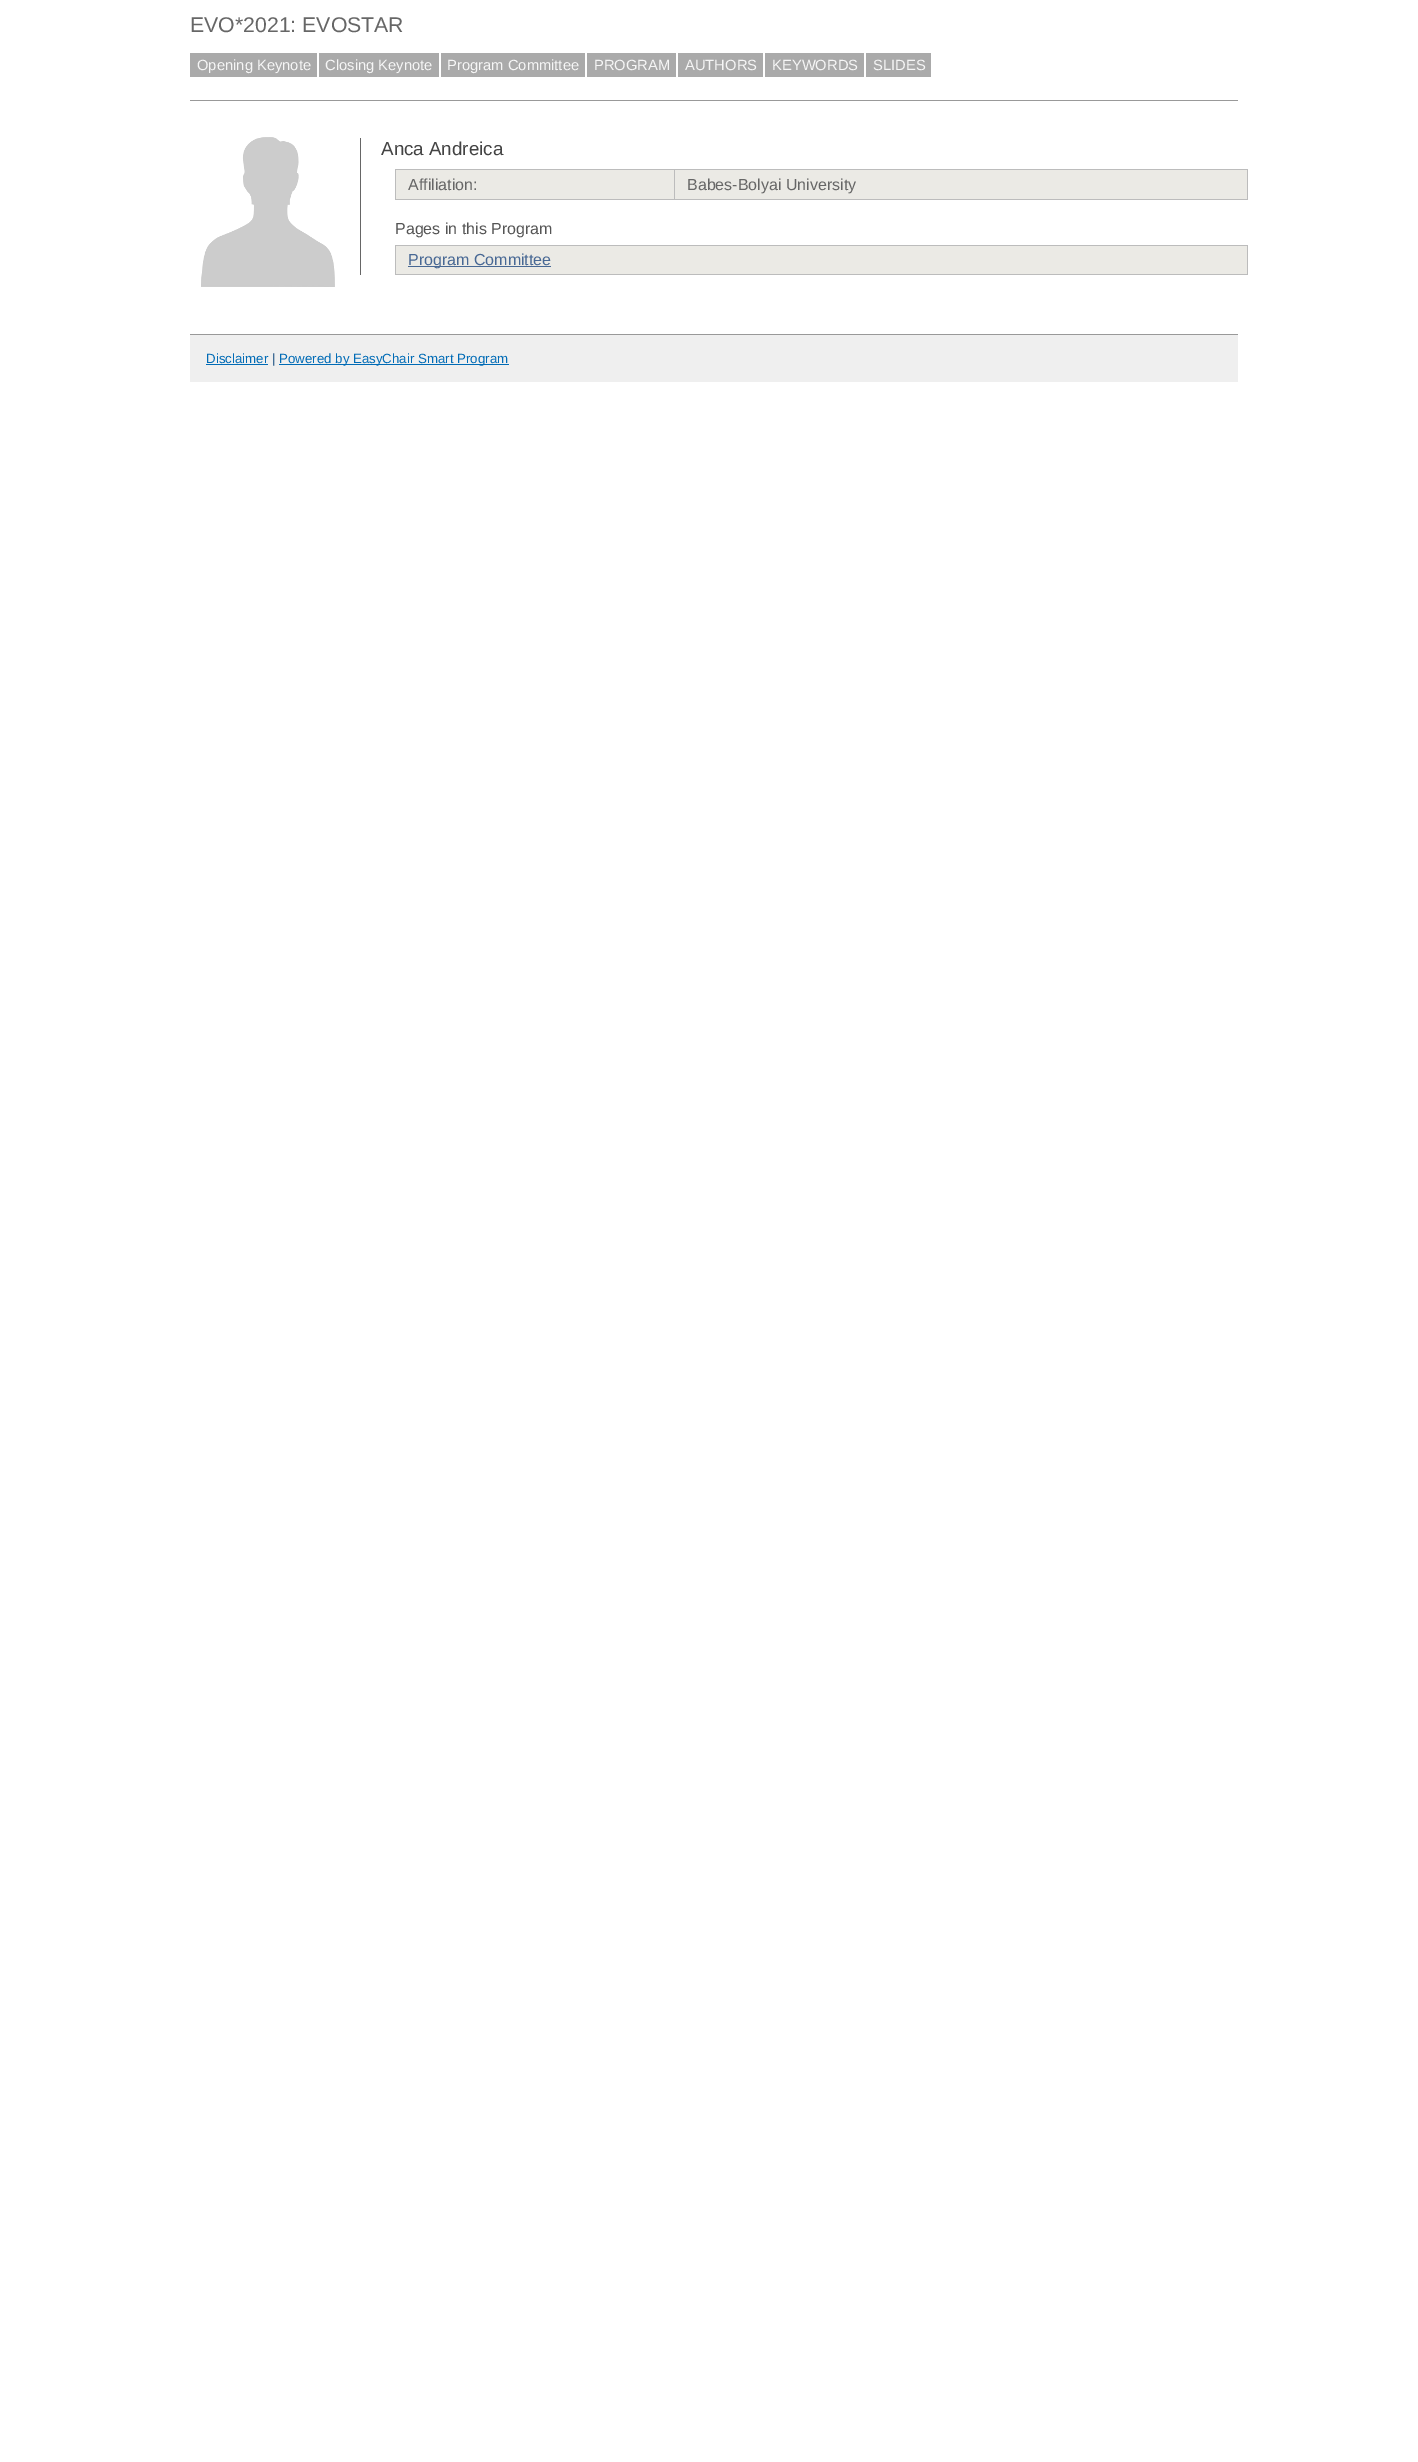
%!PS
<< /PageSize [1418 2462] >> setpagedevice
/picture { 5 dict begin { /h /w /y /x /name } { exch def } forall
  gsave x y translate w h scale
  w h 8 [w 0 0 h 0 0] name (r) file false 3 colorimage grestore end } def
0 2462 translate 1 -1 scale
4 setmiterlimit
1 setgray
0 0 1418 2462 rectfill
/LiberationSans-Regular [21.25 0 0 -21.25 0 0] selectfont
0.4 setgray
190 32 moveto (EVO*2021: EVOSTAR) show
0.667 setgray
190 53 127 24 rectfill
/LiberationSans-Regular [14.75 0 0 -14.75 0 0] selectfont
0.965 setgray
197 70 moveto (Opening Keynote) show
0.667 setgray
319 53 120 24 rectfill
0.965 setgray
325 70 moveto (Closing Keynote) show
0.667 setgray
441 53 144 24 rectfill
0.965 setgray
447 70 moveto (Program Committee) show
0.667 setgray
587 53 89 24 rectfill
0.965 setgray
594 70 moveto (PROGRAM) show
0.667 setgray
678 53 85 24 rectfill
0.965 setgray
685 70 moveto (AUTHORS) show
0.667 setgray
765 53 99 24 rectfill
0.965 setgray
772 70 moveto (KEYWORDS) show
0.667 setgray
866 53 65 24 rectfill
0.965 setgray
873 70 moveto (SLIDES) show
0.6 setgray
190 100 1048 1 rectfill
(img1.rgb) 201 137 134 150 picture
0.4 setgray
360 138 1 137 rectfill
/LiberationSans-Regular [18.75 0 0 -18.75 0 0] selectfont
0.267 setgray
381 155 moveto (Anca Andreica) show
0.922 0.918 0.898 setrgbcolor
396 170 851 29 rectfill
0.737 setgray
395 169 853 1 rectfill
395 199 853 1 rectfill
395 169 1 31 rectfill
/LiberationSans-Regular [16 0 0 -16 0 0] selectfont
0.4 setgray
408 190 moveto (Affiliation:) show
0.737 setgray
1247 169 1 31 rectfill
674 169 1 31 rectfill
0.4 setgray
687 190 moveto (Babes-Bolyai University) show
0.333 setgray
395 234 moveto (Pages in this Program) show
0.922 0.918 0.898 setrgbcolor
396 246 851 28 rectfill
0.737 setgray
395 245 853 1 rectfill
395 274 853 1 rectfill
1247 245 1 30 rectfill
395 245 1 30 rectfill
0.282 0.408 0.58 setrgbcolor
408 266 143 1 rectfill
408 265 moveto (Program Committee) show
0.937 setgray
190 335 1048 47 rectfill
0.6 setgray
190 334 1048 1 rectfill
/LiberationSans-Regular [13.3 0 0 -13.3 0 0] selectfont
0 0.42 0.714 setrgbcolor
206 363 moveto (Disclaimer) show
206 364 62 1 rectfill
0.016 0.247 0.463 setrgbcolor
272 363 moveto (|) show
0 0.42 0.714 setrgbcolor
279 364 230 1 rectfill
279 363 moveto (Powered by EasyChair Smart Program) show
showpage
